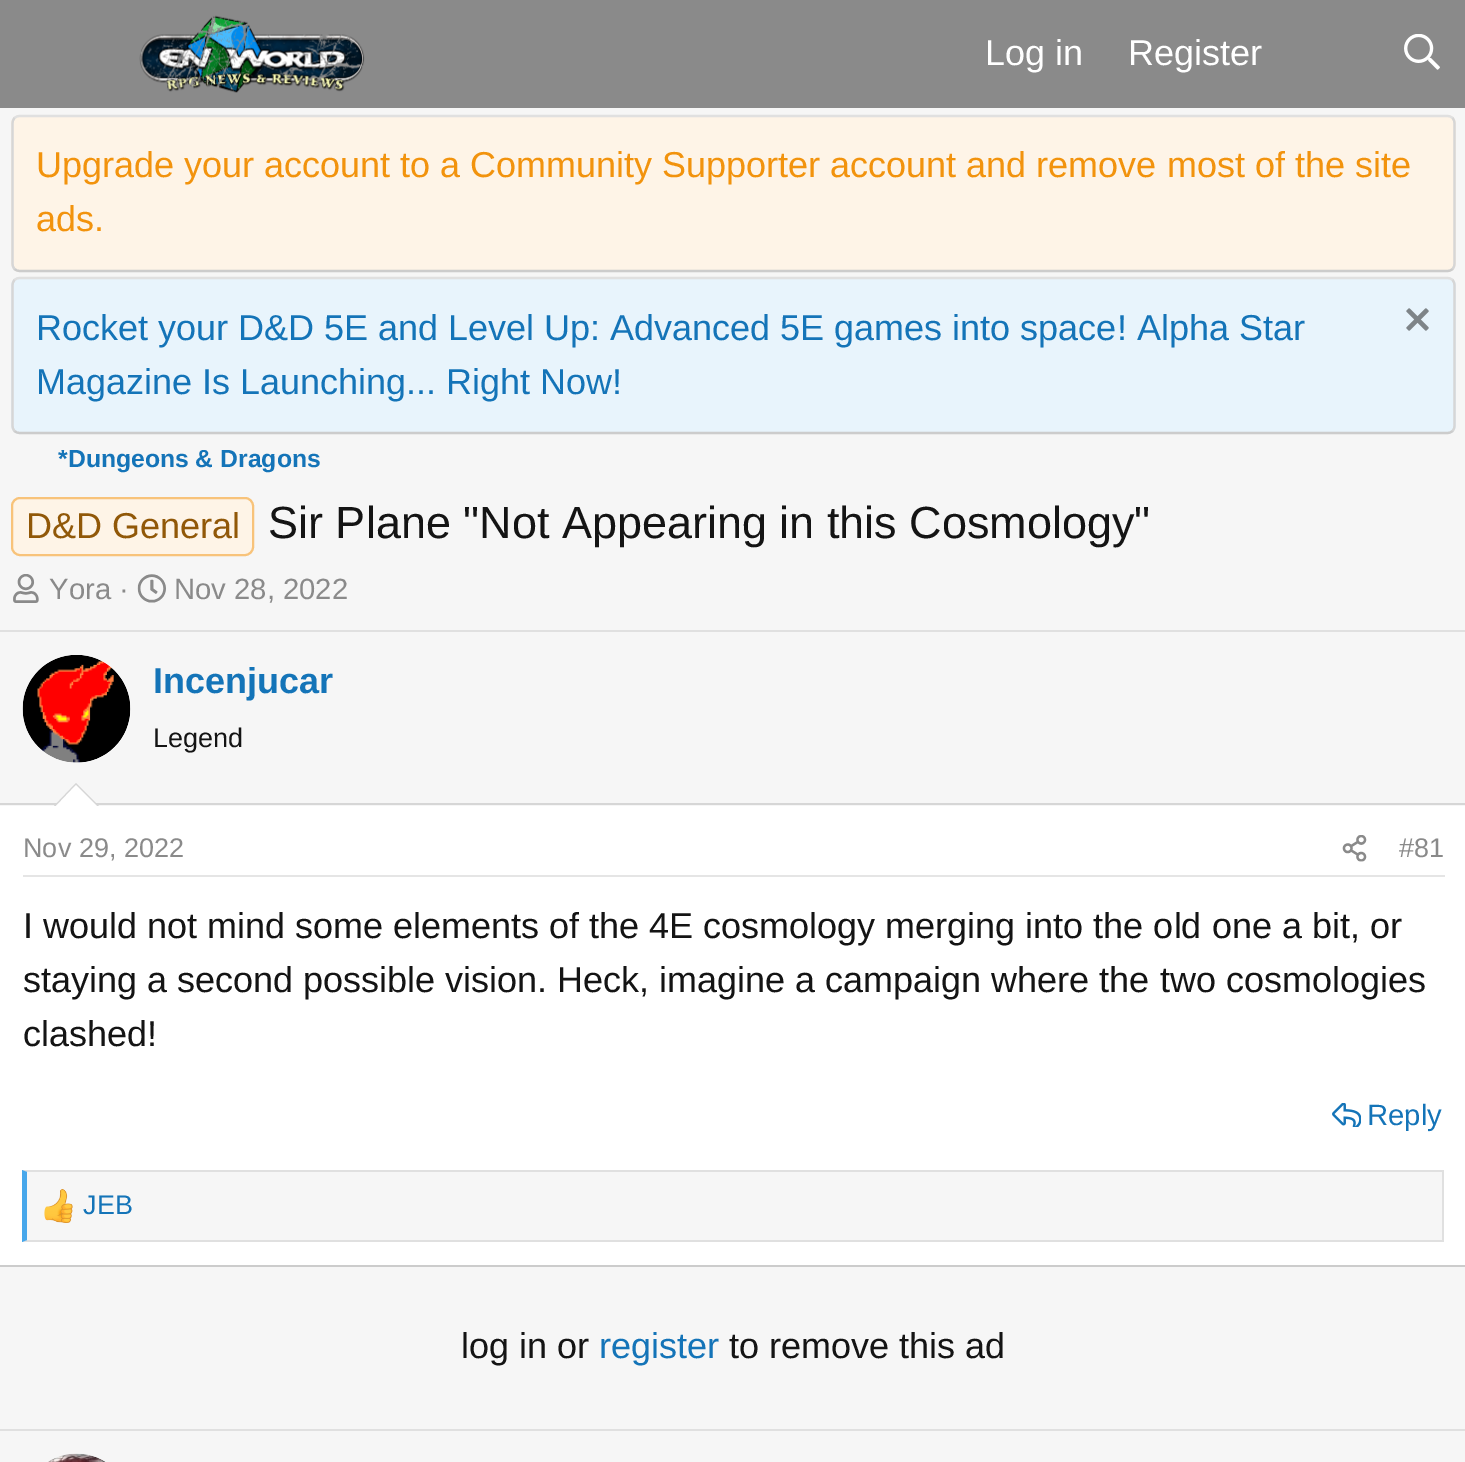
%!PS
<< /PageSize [1465 1462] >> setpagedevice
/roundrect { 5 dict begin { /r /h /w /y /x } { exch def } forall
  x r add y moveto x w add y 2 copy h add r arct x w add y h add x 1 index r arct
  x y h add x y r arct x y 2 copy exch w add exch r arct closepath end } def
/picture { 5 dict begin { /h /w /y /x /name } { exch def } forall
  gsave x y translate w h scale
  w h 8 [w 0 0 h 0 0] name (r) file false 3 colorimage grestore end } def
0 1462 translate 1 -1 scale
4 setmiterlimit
0.965 setgray
0 0 1465 1462 rectfill
0.541 setgray
0 0 1465 108 rectfill
(img1.rgb) 139 15 226 78 picture
/LiberationSans-Regular [36 0 0 -36 0 0] selectfont
1 setgray
985 65 moveto (Log in) show
1128 65 moveto (Register) show
(img2.rgb) 1404 34 36 36 picture
0.996 0.957 0.906 setrgbcolor
11 115 1445 157 9 roundrect fill
0.878 setgray
2.2 setlinewidth
newpath 14.5 118 moveto 16 116.5 18 116 20 116 curveto 1447 116 lineto 1449 116 1451 116.5 1452.5 118 curveto stroke
0.839 setgray
newpath 1452.5 118 moveto 1454 119.5 1454.5 121.5 1454.5 124 curveto 1454.5 263 lineto 1454.5 265.5 1454 267.5 1452.5 269 curveto stroke
0.8 setgray
newpath 1452.5 269 moveto 1451 270.5 1449 271 1447 271 curveto 20.5 271 lineto 18 271 16 270.5 14.5 269 curveto stroke
0.839 setgray
newpath 14.5 269 moveto 13 267.5 12.5 265.5 12.5 263 curveto 12.5 124 lineto 12.5 121.5 13 119.5 14.5 118 curveto stroke
0.949 0.576 0.051 setrgbcolor
36 177 moveto (Upgrade your account to a Community Supporter account and remove most of the site) show
36 231 moveto (ads.) show
0.91 0.957 0.988 setrgbcolor
11 277 1445 157 9 roundrect fill
0.878 setgray
newpath 14.5 280 moveto 16 278.5 18 278 20 278 curveto 1447 278 lineto 1449 278 1451 278.5 1452.5 280 curveto stroke
0.839 setgray
newpath 1452.5 280 moveto 1454 281.5 1454.5 283.5 1454.5 286 curveto 1454.5 425 lineto 1454.5 427.5 1454 429.5 1452.5 431 curveto stroke
0.8 setgray
newpath 1452.5 431 moveto 1451 432.5 1449 433 1447 433 curveto 20.5 433 lineto 18 433 16 432.5 14.5 431 curveto stroke
0.839 setgray
newpath 14.5 431 moveto 13 429.5 12.5 427.5 12.5 425 curveto 12.5 286 lineto 12.5 283.5 13 281.5 14.5 280 curveto stroke
0.078 0.455 0.722 setrgbcolor
36 340 moveto (Rocket your D&D 5E and Level Up: Advanced 5E games into space! Alpha Star) show
(img3.rgb) 1406 308 23 23 picture
36 394 moveto (Magazine Is Launching... Right Now!) show
/LiberationSans-Bold [24.75 0 0 -24.75 0 0] selectfont
58 467 moveto (*Dungeons & Dragons) show
0.996 0.957 0.906 setrgbcolor
12 498 241 57 8 roundrect gsave fill grestore
0.973 0.765 0.478 setrgbcolor
2 setlinewidth
stroke
/LiberationSans-Regular [36 0 0 -36 0 0] selectfont
0.569 0.345 0.031 setrgbcolor
26 538 moveto (D&D General) show
/LiberationSans-Regular [45 0 0 -45 0 0] selectfont
0.078 setgray
268 538 moveto (Sir Plane "Not Appearing in this Cosmology") show
(img4.rgb) 13 574 26 29 picture
/LiberationSans-Regular [29.25 0 0 -29.25 0 0] selectfont
0.541 setgray
49 599 moveto (Yora ·) show
(img5.rgb) 137 574 29 29 picture
174 599 moveto (Nov 28, 2022) show
1 setgray
0 806 1465 459 rectfill
0.878 setgray
0 630 1465 2 rectfill
0.8 setgray
0 1265 1465 2 rectfill
0.839 setgray
0 803 1465 2 rectfill
1 setgray
newpath 77 709 54 0 360 arc closepath fill
(img6.rgb) 22 655 109 108 picture
/LiberationSans-Bold [36 0 0 -36 0 0] selectfont
0.078 0.455 0.722 setrgbcolor
153 693 moveto (Incenjucar) show
/LiberationSans-Regular [27 0 0 -27 0 0] selectfont
0.078 setgray
153 747 moveto (Legend) show
0.839 setgray
newpath 99 806 moveto 54 806 lineto 76 783 lineto closepath fill
1 setgray
newpath 97 806 moveto 56 806 lineto 76 785 lineto closepath fill
0.898 setgray
23 875 1422 2 rectfill
0.541 setgray
23 857 moveto (Nov 29, 2022) show
(img7.rgb) 1342 835 25 27 picture
1399 857 moveto (#81) show
/LiberationSans-Regular [36 0 0 -36 0 0] selectfont
0.078 setgray
23 938 moveto (I would not mind some elements of the 4E cosmology merging into the old one a bit, or) show
23 992 moveto (staying a second possible vision. Heck, imagine a campaign where the two cosmologies) show
23 1046 moveto (clashed!) show
(img8.rgb) 1332 1103 29 24 picture
/LiberationSans-Regular [29.25 0 0 -29.25 0 0] selectfont
0.078 0.455 0.722 setrgbcolor
1367 1125 moveto (Reply) show
0.965 setgray
27 1172 1415 68 rectfill
0.878 setgray
newpath 22 1170 moveto 1444 1170 lineto 1442 1172 lineto 27 1172 lineto closepath fill
1442 1170 2 72 rectfill
newpath 1444 1242 moveto 22 1242 lineto 27 1240 lineto 1442 1240 lineto closepath fill
0.278 0.655 0.922 setrgbcolor
newpath 22 1242 moveto 22 1170 lineto 27 1172 lineto 27 1240 lineto closepath fill
(img9.rgb) 44 1189 29 34 picture
/LiberationSans-Regular [27 0 0 -27 0 0] selectfont
0.078 0.455 0.722 setrgbcolor
83 1214 moveto (JEB) show
/LiberationSans-Regular [36 0 0 -36 0 0] selectfont
0.078 setgray
461 1358 moveto (log in or) show
0.078 0.455 0.722 setrgbcolor
599 1358 moveto (register) show
0.078 setgray
729 1358 moveto (to remove this ad) show
0.878 setgray
0 1429 1465 2 rectfill
(img10.rgb) 48 1453 58 9 picture
showpage
